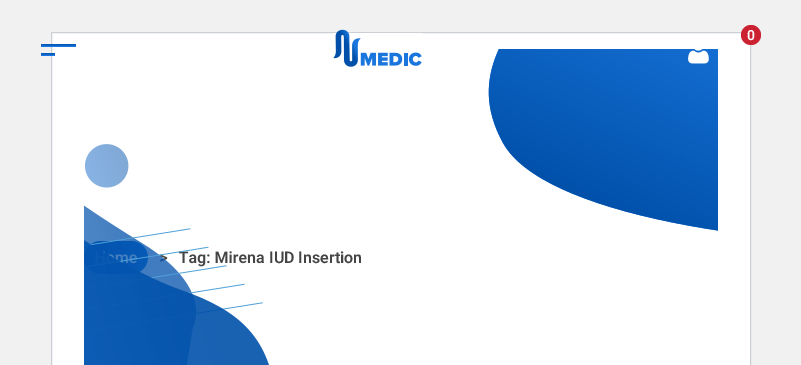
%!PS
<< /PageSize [801 365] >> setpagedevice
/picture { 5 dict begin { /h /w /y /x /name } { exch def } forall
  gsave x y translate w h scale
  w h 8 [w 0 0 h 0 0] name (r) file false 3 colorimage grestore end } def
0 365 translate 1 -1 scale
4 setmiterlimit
0.945 setgray
0 0 801 365 rectfill
1 setgray
newpath 51.5 32.5 moveto 750.5 32.5 lineto 750.5 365.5 lineto 51.5 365.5 lineto closepath gsave fill grestore
0.8 0.816 0.831 setrgbcolor
stroke
(img1.rgb) 333 29 89 38 picture
0.8 0.129 0.192 setrgbcolor
newpath 751 35 10 0 360 arc closepath fill
/Roboto-SemiBold [14 0 0 -14 0 0] selectfont
1 setgray
747 40 moveto (0) show
(img4.rgb) 488 49 230 182 picture
(img2.rgb) 688 49 21 15 picture
gsave newpath 41 44 moveto 76 44 lineto 76 47 lineto 41 47 lineto closepath clip newpath
<< /ShadingType 2 /ColorSpace /DeviceRGB /Coords [59 44 59 47] /Extend [true true] /Function << /FunctionType 2 /Domain [0 1] /C0 [0.004 0.322 0.671] /C1 [0.102 0.463 0.867] /N 1 >> >> shfill grestore
gsave newpath 41 53 moveto 55 53 lineto 55 56 lineto 41 56 lineto closepath clip newpath
<< /ShadingType 2 /ColorSpace /DeviceRGB /Coords [48 53 48 56] /Extend [true true] /Function << /FunctionType 2 /Domain [0 1] /C0 [0.004 0.322 0.671] /C1 [0.102 0.463 0.867] /N 1 >> >> shfill grestore
/Roboto-SemiBold [16 0 0 -16 0 0] selectfont
0.267 setgray
159 263 moveto (>) show
179 263 moveto (Tag: Mirena IUD Insertion) show
(img3.rgb) 84 144 185 221 picture
showpage
